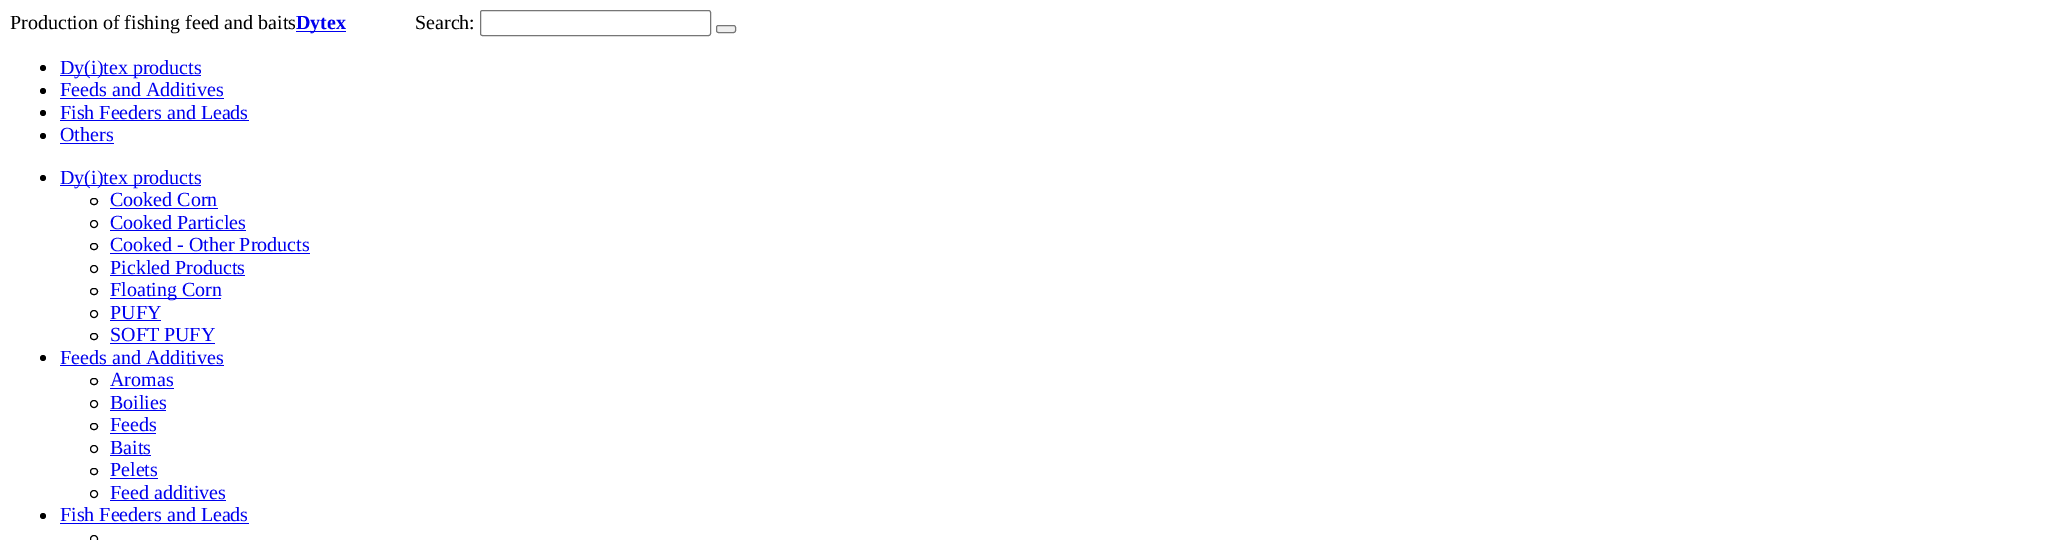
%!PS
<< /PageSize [2056 540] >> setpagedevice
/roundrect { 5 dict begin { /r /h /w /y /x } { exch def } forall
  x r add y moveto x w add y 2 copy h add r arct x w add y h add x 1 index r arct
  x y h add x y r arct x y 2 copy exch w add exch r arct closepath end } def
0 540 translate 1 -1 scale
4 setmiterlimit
1 setgray
0 0 2056 540 rectfill
/LiberationSerif-Regular [20 0 0 -20 0 0] selectfont
0 setgray
10 29 moveto (Production of fishing feed and baits) show
0 0 0.933 setrgbcolor
296 31 50 1 rectfill
/LiberationSerif-Bold [20 0 0 -20 0 0] selectfont
296 29 moveto (Dytex) show
/LiberationSerif-Regular [20 0 0 -20 0 0] selectfont
0 setgray
415 29 moveto (Search:) show
0.463 setgray
480.5 10.5 230 25 2 roundrect stroke
0.937 setgray
716.5 25.5 19 7 2 roundrect gsave fill grestore
0.463 setgray
stroke
0 setgray
newpath 43 68 3 0 360 arc closepath fill
0 0 0.933 setrgbcolor
60 75 141 1 rectfill
60 74 moveto (Dy\(i\)tex products) show
0 setgray
newpath 43 91 3 0 360 arc closepath fill
0 0 0.933 setrgbcolor
60 96 moveto (Feeds and Additives) show
60 98 164 1 rectfill
0 setgray
newpath 43 113 3 0 360 arc closepath fill
0 0 0.933 setrgbcolor
60 119 moveto (Fish Feeders and Leads) show
60 120 189 1 rectfill
0 setgray
newpath 43 136 3 0 360 arc closepath fill
0 0 0.933 setrgbcolor
60 141 moveto (Others) show
60 143 54 1 rectfill
0 setgray
newpath 43 178 3 0 360 arc closepath fill
0 0 0.933 setrgbcolor
60 185 141 1 rectfill
60 184 moveto (Dy\(i\)tex products) show
0 setgray
90.5 198.5 7 6 3 roundrect stroke
0 0 0.933 setrgbcolor
110 206 moveto (Cooked Corn) show
110 208 108 1 rectfill
0 setgray
newpath 94 224 3.5 0 360 arc closepath stroke
0 0 0.933 setrgbcolor
110 229 moveto (Cooked Particles) show
110 230 136 1 rectfill
0 setgray
90.5 243.5 7 6 3 roundrect stroke
0 0 0.933 setrgbcolor
110 251 moveto (Cooked - Other Products) show
110 253 200 1 rectfill
0 setgray
newpath 94 269 3.5 0 360 arc closepath stroke
0 0 0.933 setrgbcolor
110 274 moveto (Pickled Products) show
110 275 135 1 rectfill
0 setgray
90.5 288.5 7 6 3 roundrect stroke
0 0 0.933 setrgbcolor
110 298 111 1 rectfill
110 296 moveto (Floating Corn) show
0 setgray
newpath 94 314 3.5 0 360 arc closepath stroke
0 0 0.933 setrgbcolor
110 319 moveto (PUFY) show
110 320 51 1 rectfill
0 setgray
90.5 333.5 7 6 3 roundrect stroke
0 0 0.933 setrgbcolor
110 341 moveto (SOFT PUFY) show
110 343 105 1 rectfill
0 setgray
newpath 43 358 3 0 360 arc closepath fill
0 0 0.933 setrgbcolor
60 364 moveto (Feeds and Additives) show
60 365 164 1 rectfill
0 setgray
90.5 378.5 7 6 3 roundrect stroke
0 0 0.933 setrgbcolor
110 386 moveto (Aromas) show
110 388 64 1 rectfill
0 setgray
newpath 94 404 3.5 0 360 arc closepath stroke
0 0 0.933 setrgbcolor
110 409 moveto (Boilies) show
110 410 56 1 rectfill
0 setgray
90.5 423.5 7 6 3 roundrect stroke
0 0 0.933 setrgbcolor
110 431 moveto (Feeds) show
110 433 46 1 rectfill
0 setgray
newpath 94 449 3.5 0 360 arc closepath stroke
0 0 0.933 setrgbcolor
110 454 moveto (Baits) show
110 455 41 1 rectfill
0 setgray
90.5 468.5 7 6 3 roundrect stroke
0 0 0.933 setrgbcolor
110 476 moveto (Pelets) show
110 478 48 1 rectfill
0 setgray
newpath 94 494 3.5 0 360 arc closepath stroke
0 0 0.933 setrgbcolor
110 499 moveto (Feed additives) show
110 500 116 1 rectfill
0 setgray
newpath 43 516 3 0 360 arc closepath fill
0 0 0.933 setrgbcolor
60 521 moveto (Fish Feeders and Leads) show
60 523 189 1 rectfill
0 setgray
newpath 94 539 3.5 0 360 arc closepath stroke
showpage
